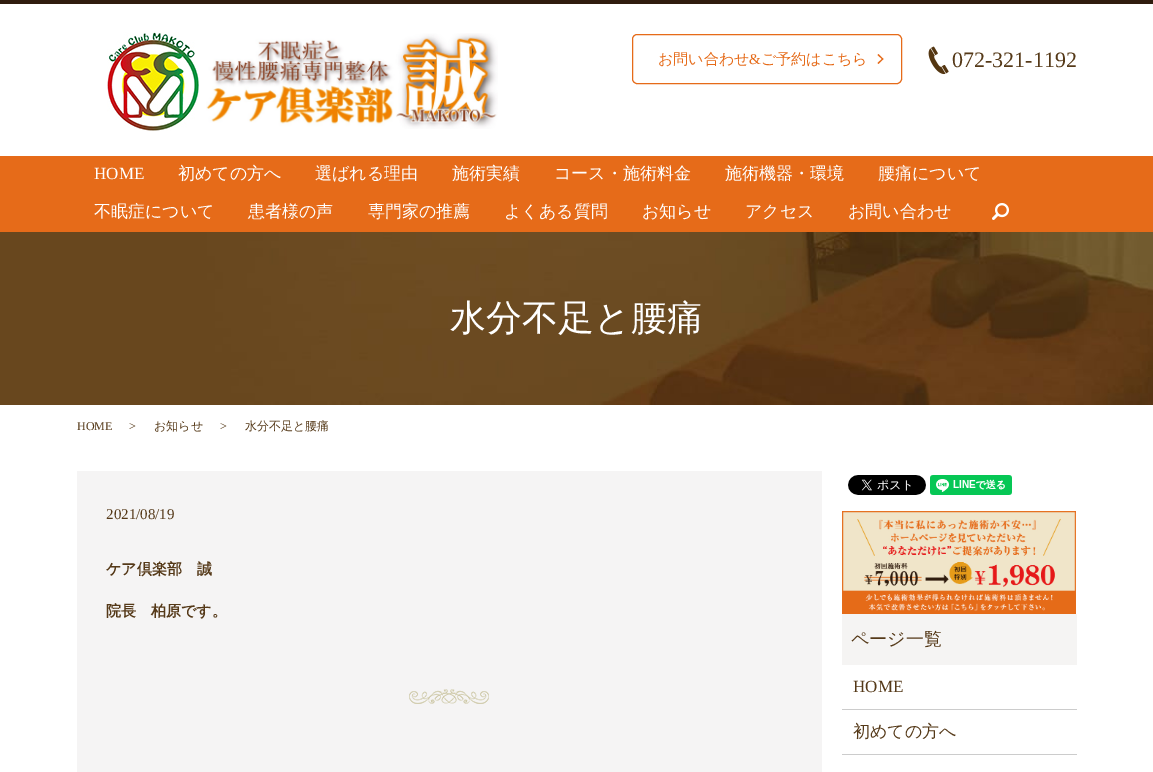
%!PS
<< /PageSize [1153 772] >> setpagedevice
/roundrect { 5 dict begin { /r /h /w /y /x } { exch def } forall
  x r add y moveto x w add y 2 copy h add r arct x w add y h add x 1 index r arct
  x y h add x y r arct x y 2 copy exch w add exch r arct closepath end } def
/picture { 5 dict begin { /h /w /y /x /name } { exch def } forall
  gsave x y translate w h scale
  w h 8 [w 0 0 h 0 0] name (r) file false 3 colorimage grestore end } def
0 772 translate 1 -1 scale
4 setmiterlimit
1 setgray
0 0 1153 772 rectfill
0.188 0.11 0.055 setrgbcolor
0 0 1153 4 rectfill
(img1.rgb) 107 32 92 99 picture
(img2.rgb) 206 33 292 96 picture
0.902 0.42 0.098 setrgbcolor
632.5 34.5 269 49 4.5 roundrect stroke
/WenQuanYiZenHei-Medium [15 0 0 -15 0 0] selectfont
658 64 moveto (お問い合わせ) show
/LiberationSerif-Regular [15 0 0 -15 0 0] selectfont
749 64 moveto (&) show
/WenQuanYiZenHei-Medium [15 0 0 -15 0 0] selectfont
761 64 moveto (ご予約はこちら) show
newpath 878.5 54 moveto 883.5 59 lineto 882.5 59.5 lineto 877.5 55 lineto closepath fill
newpath 882.5 58.5 moveto 883.5 59 lineto 878.5 64 lineto 877.5 63 lineto closepath fill
(img3.rgb) 928 46 21 29 picture
/LiberationSerif-Regular [22 0 0 -22 0 0] selectfont
0.333 0.224 0.094 setrgbcolor
952 67 moveto (072-321-1192) show
0.902 0.42 0.098 setrgbcolor
0 156 1153 76 rectfill
/LiberationSerif-Regular [17 0 0 -17 0 0] selectfont
1 setgray
94 179 moveto (HOME) show
/WenQuanYiZenHei-Medium [17 0 0 -17 0 0] selectfont
178 179 moveto (初めての方へ) show
315 179 moveto (選ばれる理由) show
452 179 moveto (施術実績) show
554 179 moveto (コース・施術料金) show
725 179 moveto (施術機器・環境) show
878 179 moveto (腰痛について) show
94 217 moveto (不眠症について) show
248 217 moveto (患者様の声) show
368 217 moveto (専門家の推薦) show
504 217 moveto (よくある質問) show
642 217 moveto (お知らせ) show
745 217 moveto (アクセス) show
848 217 moveto (お問い合わせ) show
(img4.rgb) 992 203 17 17 picture
(img5.rgb) 0 232 1153 173 picture
/WenQuanYiZenHei-Medium [36 0 0 -36 0 0] selectfont
450 330 moveto (水分不足と腰痛) show
/LiberationSerif-Regular [12 0 0 -12 0 0] selectfont
0.333 0.224 0.094 setrgbcolor
77 430 moveto (HOME) show
129 430 moveto (>) show
/WenQuanYiZenHei-Medium [12 0 0 -12 0 0] selectfont
154 430 moveto (お知らせ) show
/LiberationSerif-Regular [12 0 0 -12 0 0] selectfont
220 430 moveto (>) show
/WenQuanYiZenHei-Medium [12 0 0 -12 0 0] selectfont
245 430 moveto (水分不足と腰痛) show
0.961 0.957 0.957 setrgbcolor
77 471 745 301 rectfill
/LiberationSerif-Regular [15 0 0 -15 0 0] selectfont
0.333 0.224 0.094 setrgbcolor
106 519 moveto (2021/08/19) show
/WenQuanYiZenHei-Bold [15 0 0 -15 0 0] selectfont
106 574 moveto (ケア倶楽部　誠) show
106 616 moveto (院長　柏原です。) show
(img6.rgb) 409 689 80 15 picture
(img7.rgb) 848 475 78 20 picture
(img8.rgb) 930 475 82 20 picture
(img9.rgb) 842 511 234 103 picture
0.961 0.957 0.953 setrgbcolor
842 614 235 51 rectfill
/WenQuanYiZenHei-Medium [18 0 0 -18 0 0] selectfont
0.333 0.224 0.094 setrgbcolor
851 645 moveto (ページ一覧) show
0.8 setgray
842 709 235 1 rectfill
/LiberationSerif-Regular [17 0 0 -17 0 0] selectfont
0.333 0.224 0.094 setrgbcolor
853 692 moveto (HOME) show
0.8 setgray
842 754 235 1 rectfill
/WenQuanYiZenHei-Medium [17 0 0 -17 0 0] selectfont
0.333 0.224 0.094 setrgbcolor
853 737 moveto (初めての方へ) show
showpage
